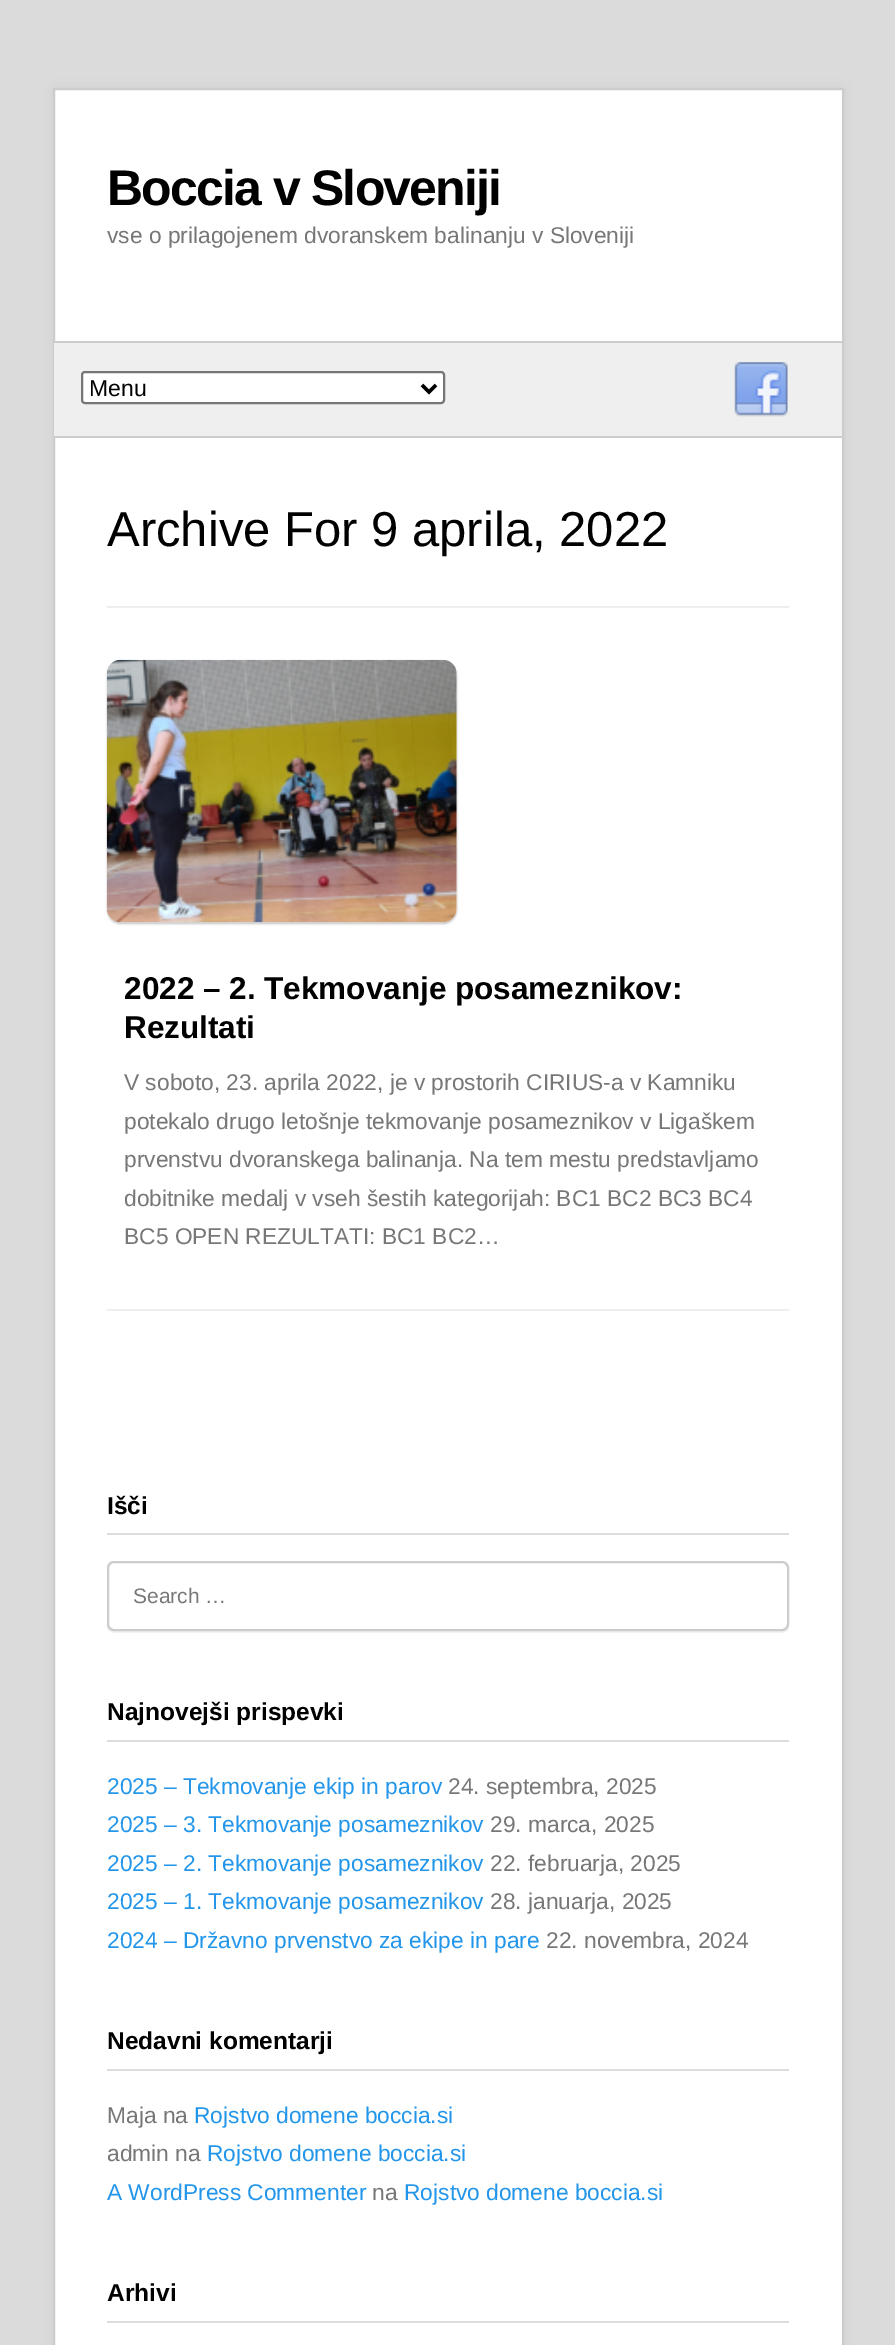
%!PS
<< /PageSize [895 2345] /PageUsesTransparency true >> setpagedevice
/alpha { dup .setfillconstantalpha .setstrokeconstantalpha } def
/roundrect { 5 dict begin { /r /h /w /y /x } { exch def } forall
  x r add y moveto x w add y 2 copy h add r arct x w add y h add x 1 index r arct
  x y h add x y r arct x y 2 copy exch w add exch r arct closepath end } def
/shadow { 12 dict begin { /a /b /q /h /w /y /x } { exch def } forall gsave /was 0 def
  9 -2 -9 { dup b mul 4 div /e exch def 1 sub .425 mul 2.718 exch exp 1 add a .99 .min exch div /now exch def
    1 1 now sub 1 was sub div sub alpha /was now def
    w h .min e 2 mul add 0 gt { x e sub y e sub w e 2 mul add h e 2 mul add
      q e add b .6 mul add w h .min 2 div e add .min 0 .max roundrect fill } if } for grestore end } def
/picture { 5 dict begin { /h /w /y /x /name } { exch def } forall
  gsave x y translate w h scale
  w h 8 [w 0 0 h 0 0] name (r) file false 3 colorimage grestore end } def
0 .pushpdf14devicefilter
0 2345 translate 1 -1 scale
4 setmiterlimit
0.859 setgray
0 0 895 2345 rectfill
0.4 setgray
53 88 791 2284 0 9 0.1 shadow
1 setgray
newpath 54 89 moveto 843 89 lineto 843 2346 lineto 54 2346 lineto closepath gsave fill grestore
0.8 setgray
2 setlinewidth
stroke
/LiberationSans-Bold [50 0 0 -50 0 0] selectfont
0 setgray
107 205 moveto -1.75 0 (Boccia v Sloveniji) ashow
/LiberationSans-Regular [22.75 0 0 -22.75 0 0] selectfont
0.467 setgray
107 243 moveto (vse o prilagojenem dvoranskem balinanju v Sloveniji) show
0.937 setgray
54 343 788 93 rectfill
0.8 setgray
54 341 788 2 rectfill
54 436 788 2 rectfill
1 setgray
82 372 362 31 3 roundrect gsave fill grestore
0.463 setgray
stroke
0 setgray
3.5 setlinewidth
newpath 422 385 moveto 429 392 lineto 436 385 lineto stroke
/LiberationSans-Regular [23 0 0 -23 0 0] selectfont
89 396 moveto (Menu) show
(img1.rgb) 734 362 54 55 picture
0.933 setgray
107 606 682 2 rectfill
/LiberationSans-Regular [49 0 0 -49 0 0] selectfont
0 setgray
107 546 moveto (Archive For 9 aprila, 2022) show
0.933 setgray
107 1309 682 2 rectfill
0.6 setgray
107 662 350 262 14 1 0.6 shadow
(img2.rgb) 106 659 351 264 picture
/LiberationSans-Bold [31.5 0 0 -31.5 0 0] selectfont
0 setgray
124 999 moveto (2022 – 2. Tekmovanje posameznikov:) show
124 1038 moveto (Rezultati) show
/LiberationSans-Regular [22.75 0 0 -22.75 0 0] selectfont
0.467 setgray
124 1090 moveto (V soboto, 23. aprila 2022, je v prostorih CIRIUS-a v Kamniku) show
124 1129 moveto (potekalo drugo letošnje tekmovanje posameznikov v Ligaškem) show
124 1167 moveto (prvenstvu dvoranskega balinanja. Na tem mestu predstavljamo) show
124 1206 moveto (dobitnike medalj v vseh šestih kategorijah: BC1 BC2 BC3 BC4) show
124 1244 moveto (BC5 OPEN REZULTATI: BC1 BC2…) show
0.867 setgray
107 1533 682 2 rectfill
/LiberationSans-Bold [24.5 0 0 -24.5 0 0] selectfont
0 setgray
107 1514 moveto (Išči) show
0.949 setgray
newpath 107 1626 moveto 107 1630 110 1633 114 1633 curveto 782 1633 lineto 786 1633 789 1630 789 1626 curveto 788 1629 785 1631 782 1631 curveto 114 1631 lineto 111 1631 108 1629 107 1626 curveto closepath fill
1 setgray
108 1562 680 68 6 roundrect gsave fill grestore
0.8 setgray
2 setlinewidth
stroke
/LiberationSans-Regular [21 0 0 -21 0 0] selectfont
0.467 setgray
133 1603 moveto (Search …) show
0.867 setgray
107 1740 682 2 rectfill
/LiberationSans-Bold [24.5 0 0 -24.5 0 0] selectfont
0 setgray
107 1720 moveto (Najnovejši prispevki) show
/LiberationSans-Regular [22.75 0 0 -22.75 0 0] selectfont
0.137 0.588 0.918 setrgbcolor
107 1794 moveto (2025 – Tekmovanje ekip in parov) show
0.467 setgray
448 1794 moveto (24. septembra, 2025) show
0.137 0.588 0.918 setrgbcolor
107 1832 moveto (2025 – 3. Tekmovanje posameznikov) show
0.467 setgray
490 1832 moveto (29. marca, 2025) show
0.137 0.588 0.918 setrgbcolor
107 1871 moveto (2025 – 2. Tekmovanje posameznikov) show
0.467 setgray
490 1871 moveto (22. februarja, 2025) show
0.137 0.588 0.918 setrgbcolor
107 1909 moveto (2025 – 1. Tekmovanje posameznikov) show
0.467 setgray
490 1909 moveto (28. januarja, 2025) show
0.137 0.588 0.918 setrgbcolor
107 1948 moveto (2024 – Državno prvenstvo za ekipe in pare) show
0.467 setgray
546 1948 moveto (22. novembra, 2024) show
0.867 setgray
107 2069 682 2 rectfill
/LiberationSans-Bold [24.5 0 0 -24.5 0 0] selectfont
0 setgray
107 2049 moveto (Nedavni komentarji) show
/LiberationSans-Regular [22.75 0 0 -22.75 0 0] selectfont
0.467 setgray
107 2123 moveto (Maja na) show
0.137 0.588 0.918 setrgbcolor
194 2123 moveto (Rojstvo domene boccia.si) show
0.467 setgray
107 2161 moveto (admin na) show
0.137 0.588 0.918 setrgbcolor
207 2161 moveto (Rojstvo domene boccia.si) show
107 2200 moveto (A WordPress Commenter) show
0.467 setgray
372 2200 moveto (na) show
0.137 0.588 0.918 setrgbcolor
404 2200 moveto (Rojstvo domene boccia.si) show
0.867 setgray
107 2321 682 2 rectfill
/LiberationSans-Bold [24.5 0 0 -24.5 0 0] selectfont
0 setgray
107 2301 moveto (Arhivi) show
.poppdf14devicefilter showpage
